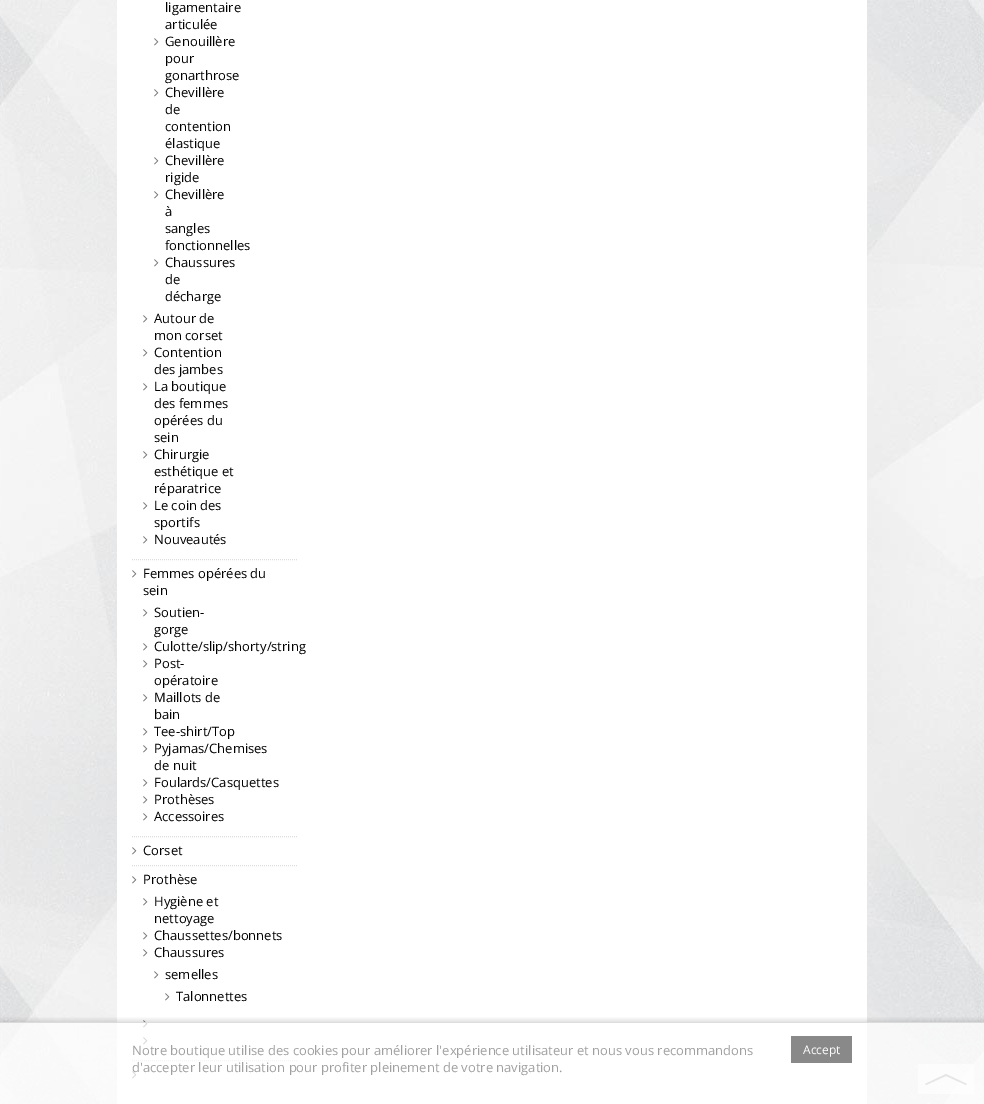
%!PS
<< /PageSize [984 1104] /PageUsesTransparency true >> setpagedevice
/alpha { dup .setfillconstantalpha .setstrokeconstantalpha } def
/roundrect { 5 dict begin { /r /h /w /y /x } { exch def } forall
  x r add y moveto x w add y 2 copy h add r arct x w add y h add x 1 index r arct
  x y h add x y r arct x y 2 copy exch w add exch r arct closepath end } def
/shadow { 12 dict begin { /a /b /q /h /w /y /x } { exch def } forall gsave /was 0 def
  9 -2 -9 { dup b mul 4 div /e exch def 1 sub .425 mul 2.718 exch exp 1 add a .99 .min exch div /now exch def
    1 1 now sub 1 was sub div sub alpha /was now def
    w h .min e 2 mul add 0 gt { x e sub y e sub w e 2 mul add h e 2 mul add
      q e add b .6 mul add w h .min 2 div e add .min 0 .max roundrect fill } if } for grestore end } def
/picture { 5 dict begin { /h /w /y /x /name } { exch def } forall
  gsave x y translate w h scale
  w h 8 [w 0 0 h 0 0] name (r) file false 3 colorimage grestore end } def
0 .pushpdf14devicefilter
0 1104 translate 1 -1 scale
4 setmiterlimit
1 setgray
0 0 984 1104 rectfill
(img1.rgb) 0 0 984 1104 picture
117 0 750 1104 rectfill
/OpenSans-Regular [13 0 0 -13 0 0] selectfont
0 setgray
165 12 moveto (ligamentaire) show
165 29 moveto (articulée) show
(img2.rgb) 154 38 5 8 picture
165 46 moveto (Genouillère) show
165 63 moveto (pour) show
165 80 moveto (gonarthrose) show
(img2.rgb) 154 89 5 8 picture
165 97 moveto (Chevillère) show
165 114 moveto (de) show
165 131 moveto (contention) show
165 148 moveto (élastique) show
(img2.rgb) 154 157 5 8 picture
165 165 moveto (Chevillère) show
165 182 moveto (rigide) show
(img2.rgb) 154 191 5 8 picture
165 199 moveto (Chevillère) show
165 216 moveto (à) show
165 233 moveto (sangles) show
165 250 moveto (fonctionnelles) show
(img2.rgb) 154 259 5 8 picture
165 267 moveto (Chaussures) show
165 284 moveto (de) show
165 301 moveto (décharge) show
(img2.rgb) 143 315 5 8 picture
154 323 moveto (Autour de) show
154 340 moveto (mon corset) show
(img2.rgb) 143 349 5 8 picture
154 357 moveto (Contention) show
154 374 moveto (des jambes) show
(img2.rgb) 143 383 5 8 picture
154 391 moveto (La boutique) show
154 408 moveto (des femmes) show
154 425 moveto (opérées du) show
154 442 moveto (sein) show
(img2.rgb) 143 451 5 8 picture
154 459 moveto (Chirurgie) show
154 476 moveto (esthétique et) show
154 493 moveto (réparatrice) show
(img2.rgb) 143 502 5 8 picture
154 510 moveto (Le coin des) show
154 527 moveto (sportifs) show
(img2.rgb) 143 536 5 8 picture
154 544 moveto (Nouveautés) show
0.867 setgray
[1 1] 0 setdash
newpath 132 559.5 moveto 297 559.5 lineto stroke
(img2.rgb) 132 570 5 8 picture
0 setgray
143 578 moveto (Femmes opérées du) show
143 595 moveto (sein) show
(img2.rgb) 143 609 5 8 picture
154 617 moveto (Soutien-) show
154 634 moveto (gorge) show
(img2.rgb) 143 643 5 8 picture
154 651 moveto (Culotte/slip/shorty/string) show
(img2.rgb) 143 660 5 8 picture
154 668 moveto (Post-) show
154 685 moveto (opératoire) show
(img2.rgb) 143 694 5 8 picture
154 702 moveto (Maillots de) show
154 719 moveto (bain) show
(img2.rgb) 143 728 5 8 picture
154 736 moveto (Tee-shirt/Top) show
(img2.rgb) 143 745 5 8 picture
154 753 moveto (Pyjamas/Chemises) show
154 770 moveto (de nuit) show
(img2.rgb) 143 779 5 8 picture
154 787 moveto (Foulards/Casquettes) show
(img2.rgb) 143 796 5 8 picture
154 804 moveto (Prothèses) show
(img2.rgb) 143 813 5 8 picture
154 821 moveto (Accessoires) show
0.867 setgray
newpath 132 836.5 moveto 297 836.5 lineto stroke
(img2.rgb) 132 847 5 8 picture
0 setgray
143 855 moveto (Corset) show
0.867 setgray
newpath 132 865.5 moveto 297 865.5 lineto stroke
(img2.rgb) 132 876 5 8 picture
0 setgray
143 884 moveto (Prothèse) show
(img2.rgb) 143 898 5 8 picture
154 906 moveto (Hygiène et) show
154 923 moveto (nettoyage) show
(img2.rgb) 143 932 5 8 picture
154 940 moveto (Chaussettes/bonnets) show
(img2.rgb) 143 949 5 8 picture
154 957 moveto (Chaussures) show
(img2.rgb) 154 971 5 8 picture
165 979 moveto (semelles) show
(img2.rgb) 165 993 5 8 picture
176 1001 moveto (Talonnettes) show
(img2.rgb) 143 1020 5 8 picture
(img2.rgb) 143 1037 5 8 picture
0.867 setgray
newpath 132 1060.5 moveto 297 1060.5 lineto stroke
(img2.rgb) 132 1071 5 8 picture
0.6 alpha
1 setgray
918 1064 56 30 rectfill
0.467 setgray
newpath 946 1076 moveto 966 1085 lineto 967 1084 lineto 946 1074 lineto closepath 925 1084 moveto 926 1085 lineto 946 1076 lineto 946 1074 lineto closepath fill
gsave
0 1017 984 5 rectclip
1 alpha
0 setgray
0 1020 984 82 0 2.5 0.14 shadow
grestore
0.7 alpha
1 setgray
0 1022 984 82 rectfill
0.808 setgray
0 1022 984 1 rectfill
1 alpha
0.627 setgray
132 1055 moveto (Notre boutique utilise des cookies pour améliorer l'expérience utilisateur et nous vous recommandons) show
132 1072 moveto (d'accepter leur utilisation pour profiter pleinement de votre navigation.) show
0.537 setgray
791 1036 61 27 rectfill
/OpenSans-Regular [12 0 0 -12 0 0] selectfont
1 setgray
803 1054 moveto (Accept) show
.poppdf14devicefilter showpage
